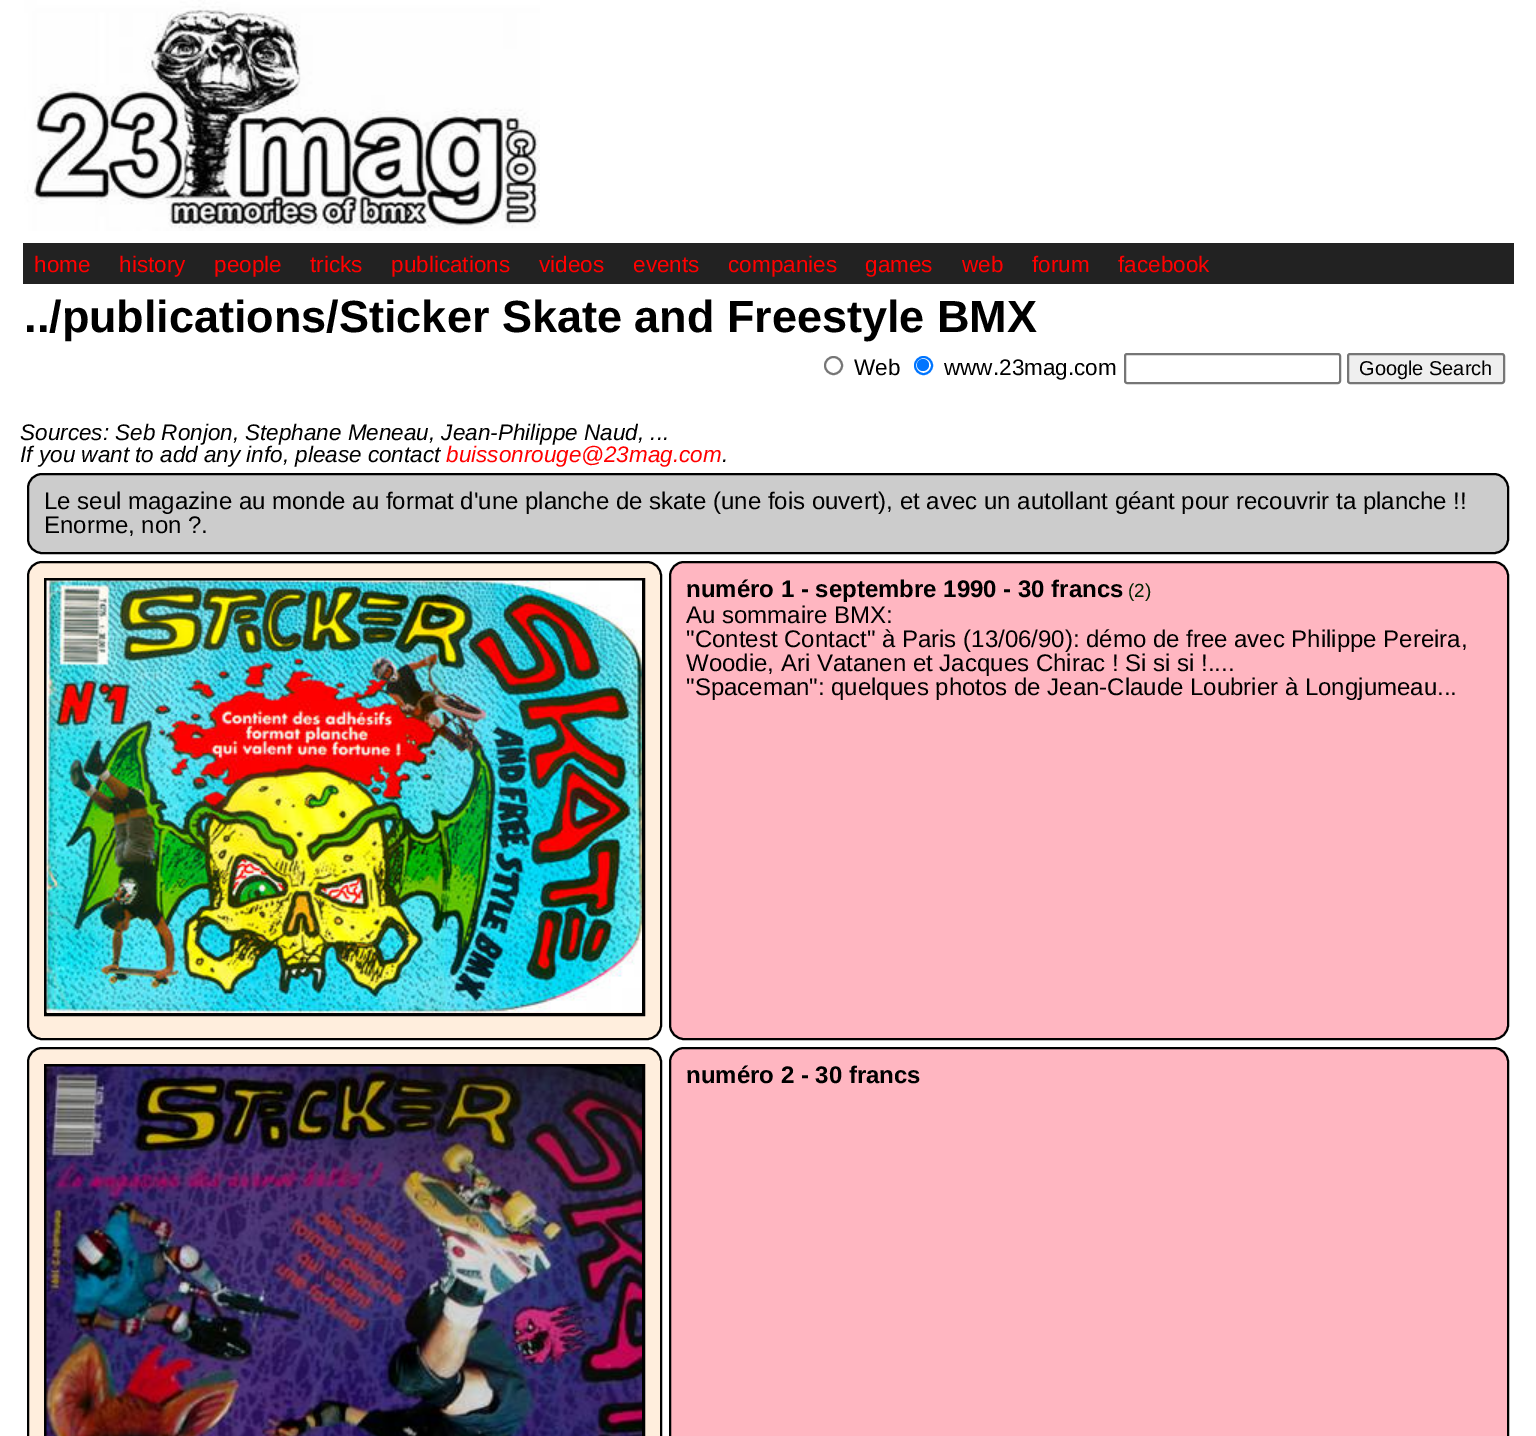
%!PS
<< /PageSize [1536 1436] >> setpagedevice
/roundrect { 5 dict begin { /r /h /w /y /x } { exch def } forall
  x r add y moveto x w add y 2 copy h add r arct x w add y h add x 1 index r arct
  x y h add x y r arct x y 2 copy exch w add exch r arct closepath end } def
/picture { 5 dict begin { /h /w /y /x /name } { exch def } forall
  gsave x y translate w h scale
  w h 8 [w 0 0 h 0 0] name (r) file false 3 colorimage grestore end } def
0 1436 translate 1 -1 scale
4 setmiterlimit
1 setgray
0 0 1536 1436 rectfill
(img1.rgb) 24 0 516 231 picture
0.133 setgray
23 243 1491 41 rectfill
/LiberationSans-Regular [22.5 0 0 -22.5 0 0] selectfont
1 0 0 setrgbcolor
34 272 moveto (home) show
119 272 moveto (history) show
214 272 moveto (people) show
310 272 moveto (tricks) show
391 272 moveto (publications) show
539 272 moveto (videos) show
633 272 moveto (events) show
728 272 moveto (companies) show
865 272 moveto (games) show
962 272 moveto (web) show
1032 272 moveto (forum) show
1118 272 moveto (facebook) show
/LiberationSans-Bold [45 0 0 -45 0 0] selectfont
0 setgray
24 332 moveto (../publications/Sticker Skate and Freestyle BMX) show
0.463 setgray
2 setlinewidth
newpath 833.5 365.5 8.5 0 360 arc closepath stroke
/LiberationSans-Regular [22.5 0 0 -22.5 0 0] selectfont
0 setgray
854 375 moveto (Web) show
0 0.459 1 setrgbcolor
newpath 923.5 365.5 8.5 0 360 arc closepath stroke
newpath 923 365 6 0 360 arc closepath fill
0 setgray
944 375 moveto (www.23mag.com) show
0.463 setgray
1125 354 215 29 2 roundrect stroke
0.937 setgray
1348 354 156 29 2 roundrect gsave fill grestore
0.463 setgray
stroke
/LiberationSans-Regular [20 0 0 -20 0 0] selectfont
0 setgray
1359 375 moveto (Google Search) show
/LiberationSans-Italic [22.5 0 0 -22.5 0 0] selectfont
20 440 moveto (Sources: Seb Ronjon, Stephane Meneau, Jean-Philippe Naud, ...) show
20 462 moveto (If you want to add any info, please contact) show
1 0 0 setrgbcolor
446 462 moveto (buissonrouge@23mag.com) show
0 setgray
722 462 moveto (.) show
0.8 setgray
28 474 1480 79 14 roundrect gsave fill grestore
0 setgray
stroke
/LiberationSans-Regular [24 0 0 -24 0 0] selectfont
44 509 moveto (Le seul magazine au monde au format d'une planche de skate \(une fois ouvert\), et avec un autollant géant pour recouvrir ta planche !!) show
44 533 moveto (Enorme, non ?.) show
1 0.933 0.867 setrgbcolor
28 562 633 477 14 roundrect gsave fill grestore
0 setgray
stroke
3 setlinewidth
45.5 579.5 598 435 rectstroke
(img2.rgb) 46 580 596 433 picture
1 0.714 0.757 setrgbcolor
670 562 838 477 14 roundrect gsave fill grestore
0 setgray
2 setlinewidth
stroke
/LiberationSans-Bold [24 0 0 -24 0 0] selectfont
686 597 moveto (numéro 1 - septembre 1990 - 30 francs) show
/LiberationSans-Regular [19 0 0 -19 0 0] selectfont
0 0.133 0 setrgbcolor
1128 597 moveto (\(2\)) show
/LiberationSans-Regular [24 0 0 -24 0 0] selectfont
0 setgray
686 623 moveto (Au sommaire BMX:) show
686 647 moveto ("Contest Contact" à Paris \(13/06/90\): démo de free avec Philippe Pereira,) show
686 671 moveto (Woodie, Ari Vatanen et Jacques Chirac ! Si si si !....) show
686 695 moveto ("Spaceman": quelques photos de Jean-Claude Loubrier à Longjumeau...) show
1 0.933 0.867 setrgbcolor
28 1048 633 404 14 roundrect gsave fill grestore
0 setgray
stroke
3 setlinewidth
45.5 1065.5 598 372 rectstroke
(img3.rgb) 46 1066 596 370 picture
1 0.714 0.757 setrgbcolor
670 1048 838 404 14 roundrect gsave fill grestore
0 setgray
2 setlinewidth
stroke
/LiberationSans-Bold [24 0 0 -24 0 0] selectfont
686 1083 moveto (numéro 2 - 30 francs) show
showpage
